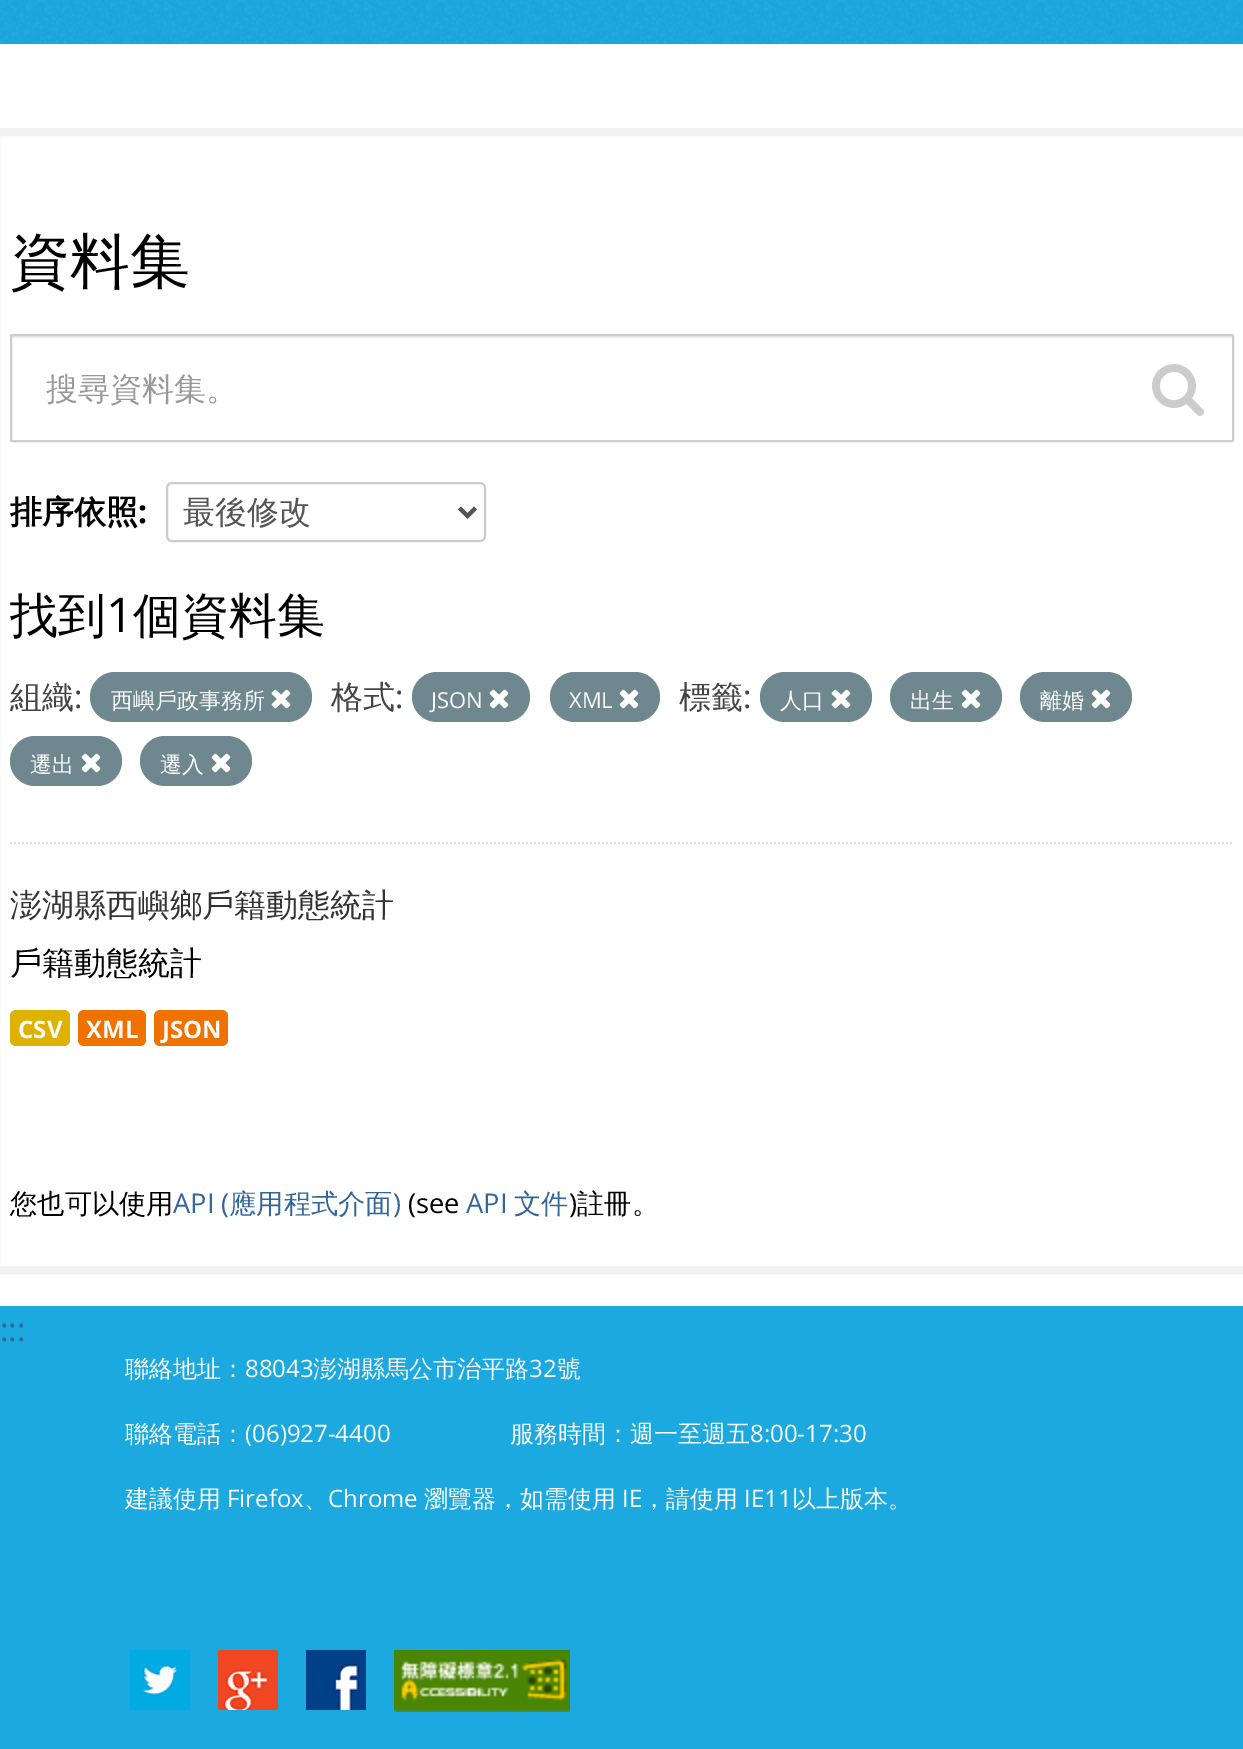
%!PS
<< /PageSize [1243 1749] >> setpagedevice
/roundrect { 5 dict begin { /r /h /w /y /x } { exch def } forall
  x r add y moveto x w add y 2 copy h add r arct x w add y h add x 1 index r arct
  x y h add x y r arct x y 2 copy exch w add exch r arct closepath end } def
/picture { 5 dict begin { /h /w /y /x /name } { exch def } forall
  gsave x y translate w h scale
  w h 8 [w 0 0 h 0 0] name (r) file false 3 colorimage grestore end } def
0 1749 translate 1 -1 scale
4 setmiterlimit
1 setgray
0 0 1243 1749 rectfill
0.106 0.663 0.875 setrgbcolor
0 0 1243 44 rectfill
(img1.rgb) 0 0 1243 44 picture
0.949 setgray
8 setlinewidth
-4 132 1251 1138 rectstroke
/WenQuanYiZenHei-Medium [60 0 0 -60 0 0] selectfont
0 setgray
10 282 moveto (資料集) show
0.867 setgray
2 setlinewidth
[2 2] 0 setdash
newpath 10 843 moveto 1234 843 lineto stroke
0.925 setgray
12 336 1220 2 rectfill
0.8 setgray
[] 0 setdash
11 335 1222 106 1 roundrect stroke
/WenQuanYiZenHei-Medium [32 0 0 -32 0 0] selectfont
0.6 setgray
46 400 moveto (搜尋資料集。) show
(img2.rgb) 1152 364 52 52 picture
/WenQuanYiZenHei-Bold [32 0 0 -32 0 0] selectfont
0 setgray
10 523 moveto (排序依照) show
/OpenSans-Bold [32 0 0 -32 0 0] selectfont
138 523 moveto (:) show
0.8 setgray
167 483 318 58 5 roundrect stroke
0.333 setgray
4 setlinewidth
newpath 459.5 508 moveto 467.5 516 lineto 475.5 508 lineto stroke
/WenQuanYiZenHei-Medium [32 0 0 -32 0 0] selectfont
183 523 moveto (最後修改) show
/WenQuanYiZenHei-Medium [48 0 0 -48 0 0] selectfont
0 setgray
10 632 moveto (找到) show
/OpenSans-Regular [48 0 0 -48 0 0] selectfont
106 632 moveto (1) show
/WenQuanYiZenHei-Medium [48 0 0 -48 0 0] selectfont
133 632 moveto (個資料集) show
/WenQuanYiZenHei-Medium [32 0 0 -32 0 0] selectfont
0.267 setgray
10 708 moveto (組織) show
/OpenSans-Regular [32 0 0 -32 0 0] selectfont
74 708 moveto (:) show
0.435 0.533 0.565 setrgbcolor
90 672 222 50 25 roundrect fill
/WenQuanYiZenHei-Medium [22 0 0 -22 0 0] selectfont
0.984 setgray
111 708 moveto (西嶼戶政事務所) show
(img3.rgb) 271 689 20 20 picture
/WenQuanYiZenHei-Medium [32 0 0 -32 0 0] selectfont
0.267 setgray
331 708 moveto (格式) show
/OpenSans-Regular [32 0 0 -32 0 0] selectfont
395 708 moveto (:) show
0.435 0.533 0.565 setrgbcolor
412 672 118 50 25 roundrect fill
/OpenSans-Regular [22 0 0 -22 0 0] selectfont
0.984 setgray
431 708 moveto (JSON) show
(img3.rgb) 489 689 20 20 picture
0.435 0.533 0.565 setrgbcolor
550 672 110 50 25 roundrect fill
0.984 setgray
569 708 moveto (XML) show
(img3.rgb) 619 689 20 20 picture
/WenQuanYiZenHei-Medium [32 0 0 -32 0 0] selectfont
0.267 setgray
679 708 moveto (標籤) show
/OpenSans-Regular [32 0 0 -32 0 0] selectfont
743 708 moveto (:) show
0.435 0.533 0.565 setrgbcolor
760 672 112 50 25 roundrect fill
/WenQuanYiZenHei-Medium [22 0 0 -22 0 0] selectfont
0.984 setgray
780 708 moveto (人口) show
(img3.rgb) 831 689 20 20 picture
0.435 0.533 0.565 setrgbcolor
890 672 112 50 25 roundrect fill
0.984 setgray
910 708 moveto (出生) show
(img3.rgb) 961 689 20 20 picture
0.435 0.533 0.565 setrgbcolor
1020 672 112 50 25 roundrect fill
0.984 setgray
1040 708 moveto (離婚) show
(img3.rgb) 1091 689 20 20 picture
0.435 0.533 0.565 setrgbcolor
10 736 112 50 25 roundrect fill
0.984 setgray
30 772 moveto (遷出) show
(img3.rgb) 81 753 20 20 picture
0.435 0.533 0.565 setrgbcolor
140 736 112 50 25 roundrect fill
0.984 setgray
160 772 moveto (遷入) show
(img3.rgb) 211 753 20 20 picture
/WenQuanYiZenHei-Medium [32 0 0 -32 0 0] selectfont
0.2 setgray
10 916 moveto (澎湖縣西嶼鄉戶籍動態統計) show
0 setgray
10 974 moveto (戶籍動態統計) show
0.875 0.694 0 setrgbcolor
10 1010 60 36 6 roundrect fill
/OpenSans-Bold [24 0 0 -24 0 0] selectfont
0.984 setgray
18 1038 moveto (CSV) show
0.937 0.443 0 setrgbcolor
78 1010 68 36 6 roundrect fill
0.984 setgray
86 1038 moveto (XML) show
0.937 0.443 0 setrgbcolor
154 1010 74 36 6 roundrect fill
0.984 setgray
162 1038 moveto (JSON) show
/WenQuanYiZenHei-Medium [27.25 0 0 -27.25 0 0] selectfont
0 setgray
10 1213 moveto (您也可以使用) show
/OpenSans-Regular [27.25 0 0 -27.25 0 0] selectfont
0.2 0.4 0.6 setrgbcolor
173 1213 moveto (API \() show
/WenQuanYiZenHei-Medium [27.25 0 0 -27.25 0 0] selectfont
229 1213 moveto (應用程式介面) show
/OpenSans-Regular [27.25 0 0 -27.25 0 0] selectfont
393 1213 moveto (\)) show
0 setgray
408 1213 moveto (\(see) show
0.2 0.4 0.6 setrgbcolor
466 1213 moveto (API) show
/WenQuanYiZenHei-Medium [27.25 0 0 -27.25 0 0] selectfont
514 1213 moveto (文件) show
/OpenSans-Regular [27.25 0 0 -27.25 0 0] selectfont
0 setgray
569 1213 moveto (\)) show
/WenQuanYiZenHei-Medium [27.25 0 0 -27.25 0 0] selectfont
577 1213 moveto (註冊。) show
0.106 0.663 0.875 setrgbcolor
0 1306 1243 443 rectfill
/OpenSans-Regular [32 0 0 -32 0 0] selectfont
0.2 0.4 0.6 setrgbcolor
0 1341 moveto (:::) show
/WenQuanYiZenHei-Medium [24 0 0 -24 0 0] selectfont
0.984 setgray
125 1377 moveto (聯絡地址：) show
/OpenSans-Regular [24 0 0 -24 0 0] selectfont
245 1377 moveto (88043) show
/WenQuanYiZenHei-Medium [24 0 0 -24 0 0] selectfont
313 1377 moveto (澎湖縣馬公市治平路) show
/OpenSans-Regular [24 0 0 -24 0 0] selectfont
529 1377 moveto (32) show
/WenQuanYiZenHei-Medium [24 0 0 -24 0 0] selectfont
557 1377 moveto (號) show
125 1442 moveto (聯絡電話：) show
/OpenSans-Regular [24 0 0 -24 0 0] selectfont
245 1442 moveto (\(06\)927-4400) show
/WenQuanYiZenHei-Medium [24 0 0 -24 0 0] selectfont
510 1442 moveto (服務時間：週一至週五) show
/OpenSans-Regular [24 0 0 -24 0 0] selectfont
750 1442 moveto (8:00-17:30) show
/WenQuanYiZenHei-Medium [24 0 0 -24 0 0] selectfont
125 1507 moveto (建議使用) show
/OpenSans-Regular [24 0 0 -24 0 0] selectfont
227 1507 moveto (Firefox) show
328 1507 moveto (Chrome) show
/WenQuanYiZenHei-Medium [24 0 0 -24 0 0] selectfont
424 1507 moveto (瀏覽器，如需使用) show
/OpenSans-Regular [24 0 0 -24 0 0] selectfont
622 1507 moveto (IE) show
/WenQuanYiZenHei-Medium [24 0 0 -24 0 0] selectfont
642 1507 moveto (，請使用) show
/OpenSans-Regular [24 0 0 -24 0 0] selectfont
744 1507 moveto (IE11) show
/WenQuanYiZenHei-Medium [24 0 0 -24 0 0] selectfont
792 1507 moveto (以上版本。) show
304 1507 moveto (、) show
(img4.rgb) 130 1650 60 60 picture
(img5.rgb) 218 1650 60 60 picture
(img6.rgb) 306 1650 60 60 picture
(img7.rgb) 394 1650 176 62 picture
showpage
